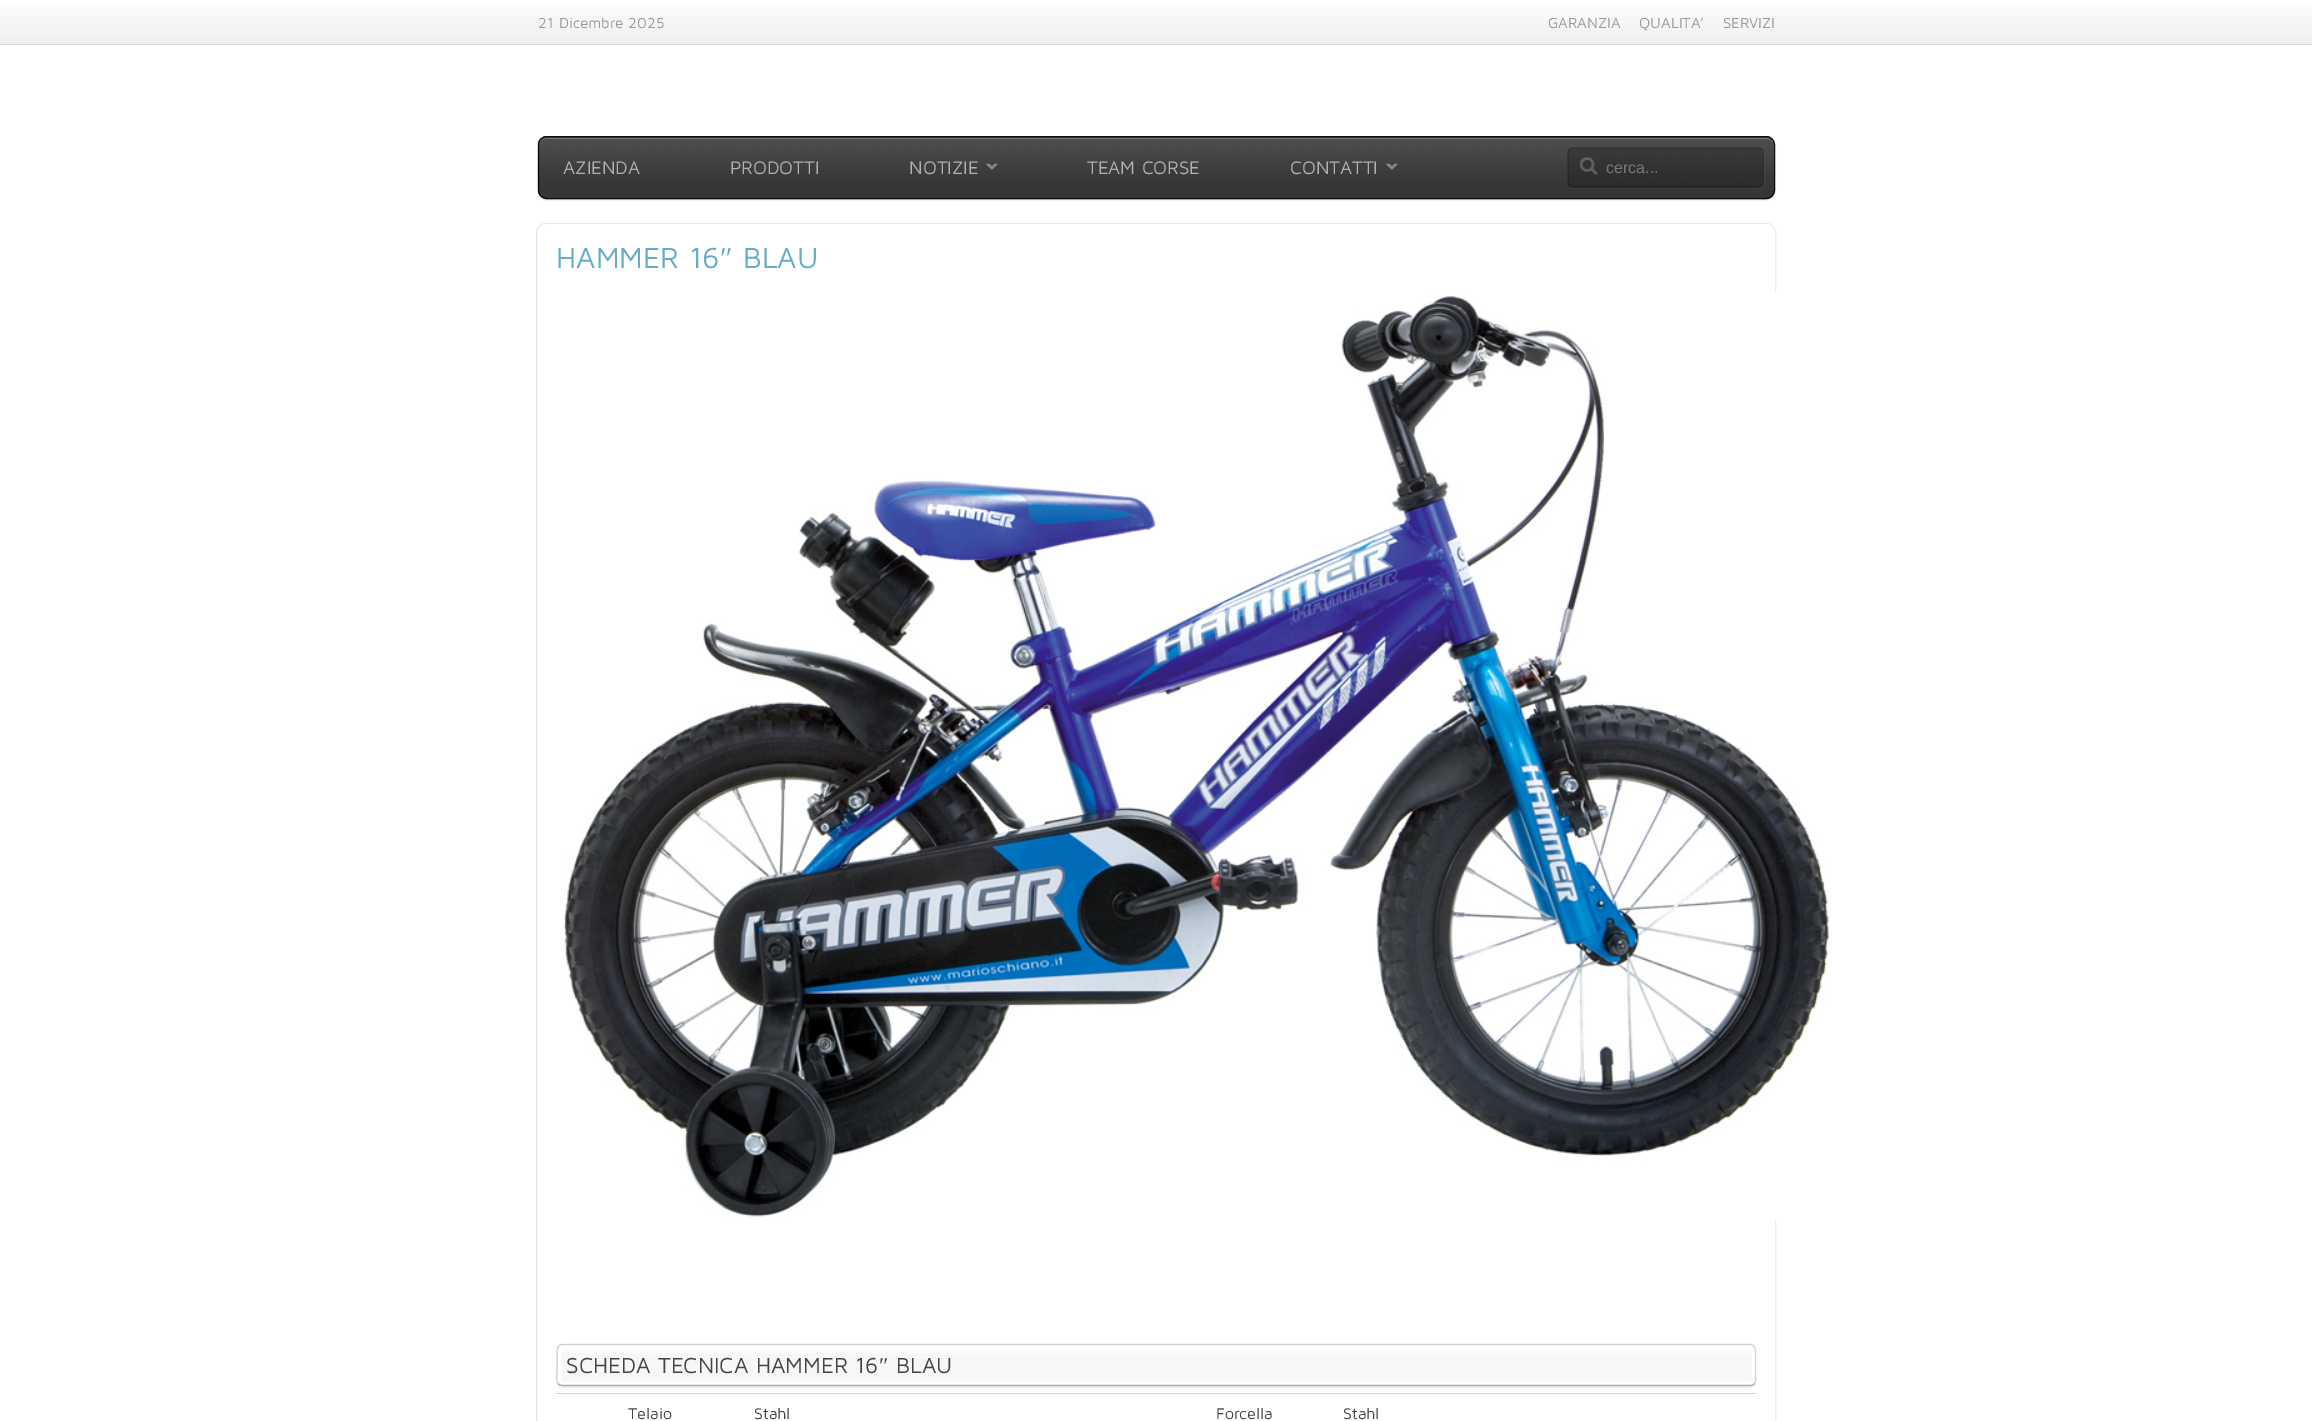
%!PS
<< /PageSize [2312 1421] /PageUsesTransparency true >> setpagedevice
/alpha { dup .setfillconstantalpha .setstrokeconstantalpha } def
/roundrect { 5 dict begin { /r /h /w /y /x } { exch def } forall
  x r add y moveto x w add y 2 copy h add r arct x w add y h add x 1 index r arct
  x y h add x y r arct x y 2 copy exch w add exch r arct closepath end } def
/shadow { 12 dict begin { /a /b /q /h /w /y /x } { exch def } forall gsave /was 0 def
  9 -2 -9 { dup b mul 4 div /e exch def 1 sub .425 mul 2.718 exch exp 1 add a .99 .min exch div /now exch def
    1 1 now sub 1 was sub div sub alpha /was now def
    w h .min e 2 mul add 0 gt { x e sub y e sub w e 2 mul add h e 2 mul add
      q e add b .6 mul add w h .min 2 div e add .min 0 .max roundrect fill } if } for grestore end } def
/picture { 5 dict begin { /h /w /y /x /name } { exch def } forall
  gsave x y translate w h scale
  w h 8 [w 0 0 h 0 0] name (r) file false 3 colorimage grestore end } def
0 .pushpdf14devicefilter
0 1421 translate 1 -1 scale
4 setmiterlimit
1 setgray
0 0 2312 1421 rectfill
(img1.rgb) 0 7 2312 37 picture
0.847 setgray
0 44 2312 1 rectfill
/MavenPro-Regular [15 0 0 -15 0 0] selectfont
0.6 0.6 0.608 setrgbcolor
538 28 moveto (21 Dicembre 2025) show
1548 28 moveto (GARANZIA) show
1639 28 moveto (QUALITA’) show
1723 28 moveto (SERVIZI) show
0 0 0.008 setrgbcolor
538 138 1237 62 9 0.5 0.2 shadow
0.212 0.212 0.22 setrgbcolor
538 136 1237 63 9 roundrect fill
(img2.rgb) 537 137 1238 57 picture
0.439 0.439 0.447 setrgbcolor
newpath 546 139 moveto 1766 139 lineto 1770 139 1774 142 1774 146 curveto 1774 142 1770 138 1766 138 curveto 547 138 lineto 543 138 539 142 539 146 curveto 539 142 542 139 546 139 curveto closepath fill
0.8 alpha
0 0 0.008 setrgbcolor
538.5 136.5 1236 62 8.5 roundrect stroke
/MavenPro-Regular [18.75 0 0 -18.75 0 0] selectfont
1 alpha
0.694 0.694 0.702 setrgbcolor
563 174 moveto (AZIENDA) show
730 174 moveto (PRODOTTI) show
(img3.rgb) 986 163 12 7 picture
909 174 moveto (NOTIZIE) show
1087 174 moveto (TEAM CORSE) show
(img4.rgb) 1386 163 12 7 picture
1290 174 moveto (CONTATTI) show
0.05 alpha
0.992 0.992 1 setrgbcolor
newpath 1570 187 moveto 1571 188 1572 189 1574 189 curveto 1760 189 lineto 1763 189 1765 187 1765 184 curveto 1765 154 lineto 1765 152 1764 151 1763 150 curveto 1764 152 lineto 1764 182 lineto 1764 185 1762 188 1759 188 curveto 1572 188 lineto closepath fill
0.2 alpha
0 0 0.008 setrgbcolor
1568 148 196 40 5 roundrect fill
1 alpha
(img5.rgb) 1580 157 18 19 picture
0.12 alpha
1.2 setlinewidth
newpath 1762 149.5 moveto 1762.5 150 1763 151.5 1763 152.5 curveto 1763 182.5 lineto 1763 183.5 1762.5 185 1762 185.5 curveto 1761 186.5 1760 187 1759 187 curveto 1572.5 187 lineto 1571.5 187 1570 186.5 1569.5 185.5 curveto stroke
0.25 alpha
newpath 1569.5 185.5 moveto 1568.5 185 1568 183.5 1568 182.5 curveto 1568 152.5 lineto 1568 151.5 1568.5 150 1569.5 149.5 curveto 1570 148.5 1571.5 148 1572.5 148 curveto 1759 148 lineto 1760 148 1761 148.5 1762 149.5 curveto stroke
/LiberationSans-Regular [16 0 0 -16 0 0] selectfont
1 alpha
0.467 0.467 0.475 setrgbcolor
1606 173 moveto (cerca...) show
0.1 alpha
0 0 0.008 setrgbcolor
1 setlinewidth
536.5 223.5 1239 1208 9.5 roundrect stroke
1 alpha
1 setgray
3 setlinewidth
539.5 225.5 1234 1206 7.5 roundrect stroke
/MavenPro-Regular [30 0 0 -30 0 0] selectfont
0.396 0.678 0.773 setrgbcolor
556 268 moveto (HAMMER 16) show
/LiberationSerif-Regular [30 0 0 -30 0 0] selectfont
720 268 moveto (″) show
/MavenPro-Regular [30 0 0 -30 0 0] selectfont
743 268 moveto (BLAU) show
(img6.rgb) 563 291 1266 929 picture
0.949 setgray
newpath 556 1349 moveto 556 1377 lineto 556 1381 556 1388 562 1388 curveto 1750 1388 lineto 1753 1388 1756 1385 1756 1382 curveto 1755 1384 1753 1386 1750 1386 curveto 562 1386 lineto 559 1386 556 1383 556 1380 curveto closepath fill
0.969 0.969 0.976 setrgbcolor
556 1344 1200 42 6 roundrect fill
(img7.rgb) 557 1345 1199 8 picture
1 setgray
559.5 1346.5 1194 37 3.5 roundrect stroke
0.678 0.678 0.686 setrgbcolor
1.2 setlinewidth
newpath 1754 1384 moveto 1753 1385 1751.5 1385.5 1750 1385.5 curveto 562.5 1385.5 lineto 561 1385.5 559.5 1385 558.5 1384 curveto stroke
0.15 alpha
0 0 0.008 setrgbcolor
newpath 558.5 1384 moveto 555.5 1381 557 1373.5 557 1370 curveto 557 1355 lineto 557 1351 556.5 1344.5 562.5 1344.5 curveto 1750.5 1344.5 lineto 1756 1345 1755.5 1351 1755.5 1355 curveto 1755.5 1375 lineto 1755.5 1378 1756.5 1381.5 1754 1384 curveto stroke
/MavenPro-Regular [22.5 0 0 -22.5 0 0] selectfont
1 alpha
0.267 0.267 0.275 setrgbcolor
566 1373 moveto (SCHEDA TECNICA HAMMER 16) show
/LiberationSerif-Regular [22.5 0 0 -22.5 0 0] selectfont
879 1373 moveto (″) show
/MavenPro-Regular [22.5 0 0 -22.5 0 0] selectfont
896 1373 moveto (BLAU) show
0.824 0.824 0.831 setrgbcolor
556 1393 1200 1 rectfill
/MavenPro-Regular [16 0 0 -16 0 0] selectfont
0.267 0.267 0.275 setrgbcolor
628 1419 moveto (Telaio) show
754 1419 moveto (Stahl) show
1216 1419 moveto (Forcella) show
1343 1419 moveto (Stahl) show
.poppdf14devicefilter showpage
